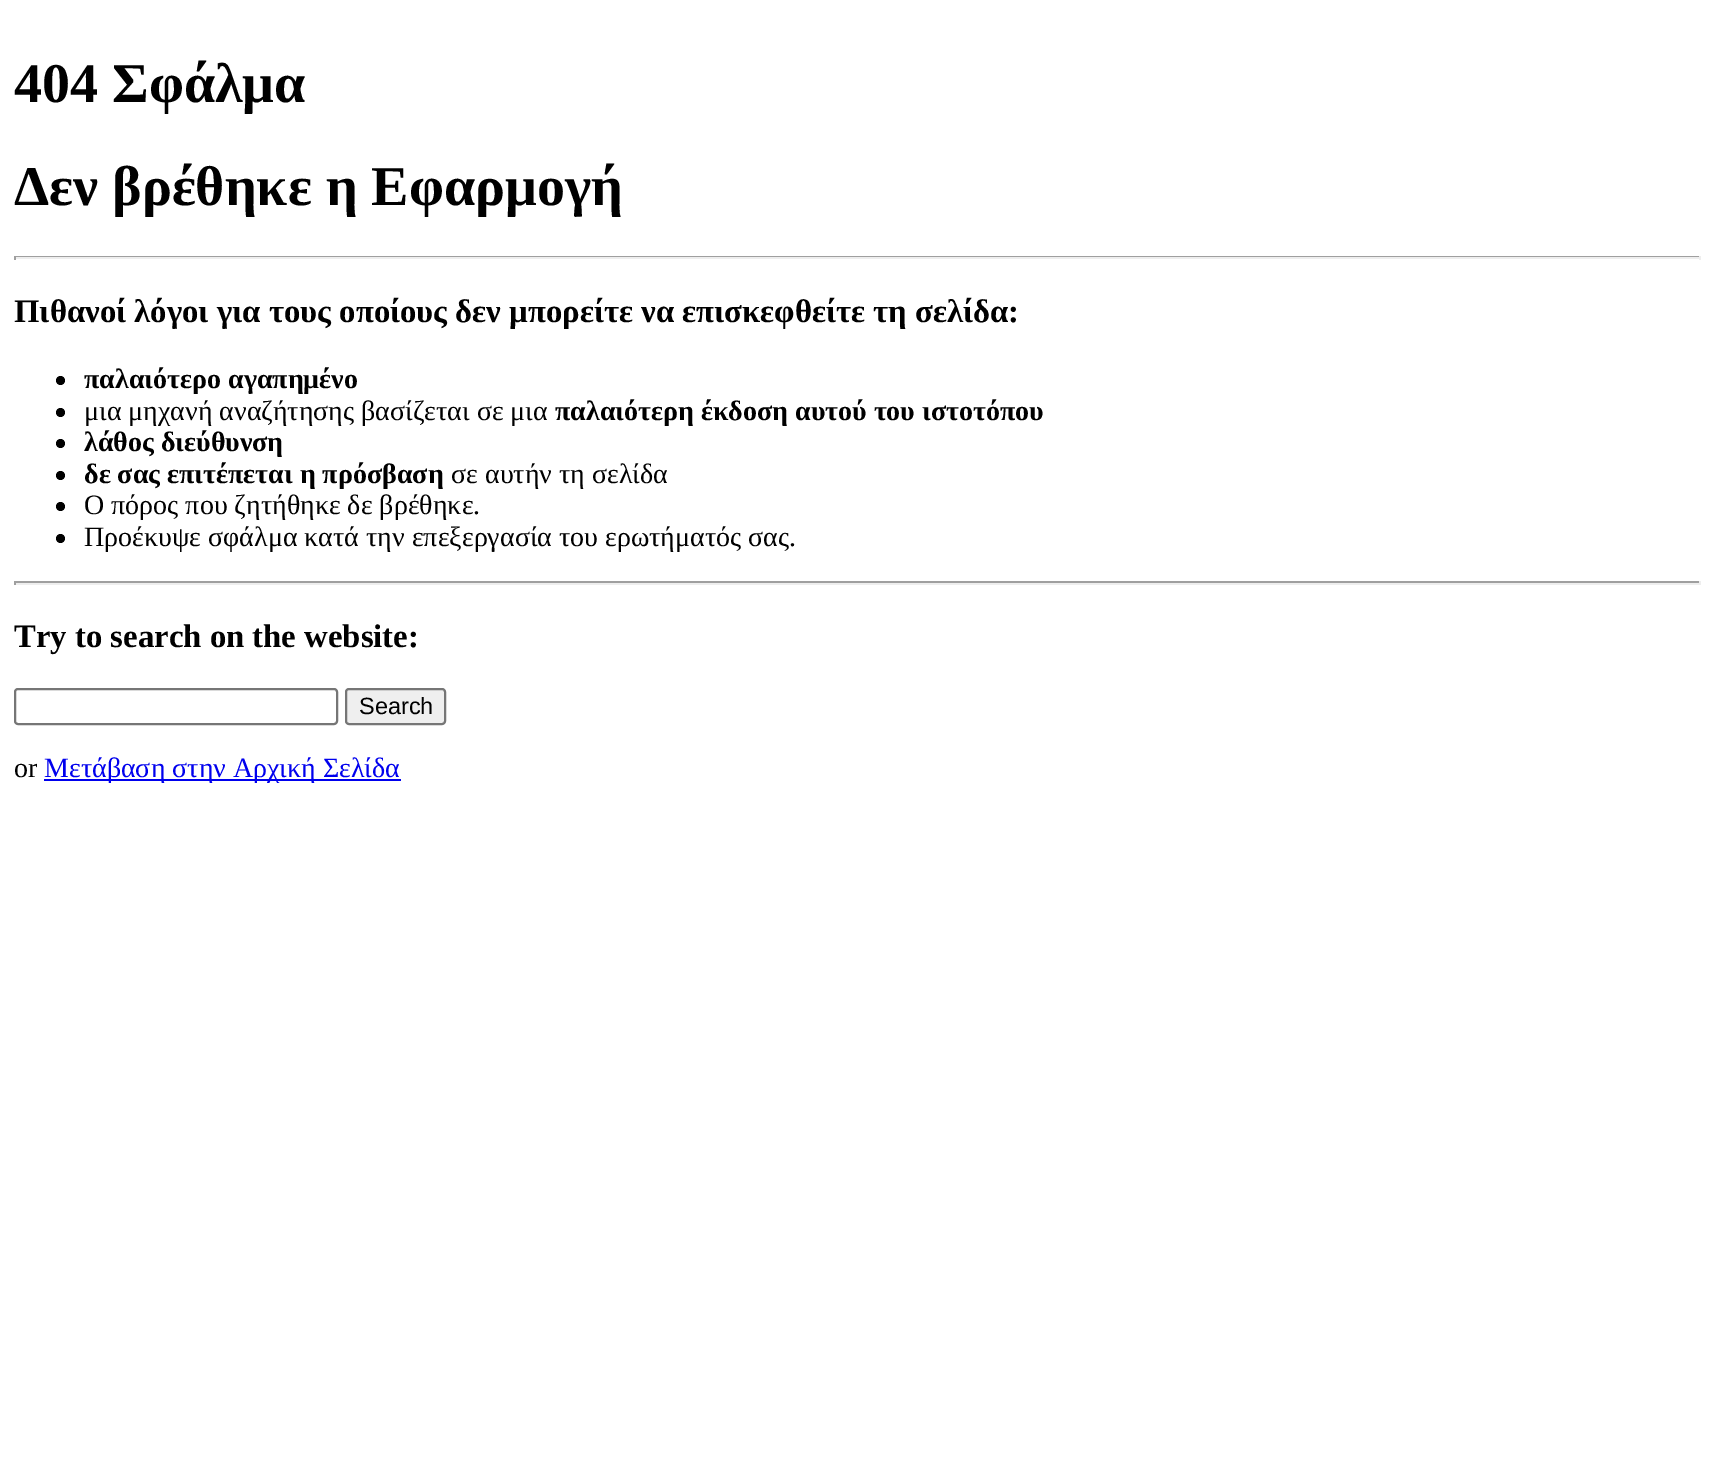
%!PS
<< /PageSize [1714 1467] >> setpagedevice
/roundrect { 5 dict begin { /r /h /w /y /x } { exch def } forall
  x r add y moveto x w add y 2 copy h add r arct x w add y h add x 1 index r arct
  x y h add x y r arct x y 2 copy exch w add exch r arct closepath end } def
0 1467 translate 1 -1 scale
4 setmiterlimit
1 setgray
0 0 1714 1467 rectfill
/LiberationSerif-Bold [56 0 0 -56 0 0] selectfont
0 setgray
14 102 moveto (404 Σφάλμα) show
14 205 moveto (Δεν βρέθηκε η Εφαρμογή) show
0.624 setgray
14 256 1687 1 rectfill
0.933 setgray
1699 256 2 4 rectfill
14 257 1687 2 rectfill
0.624 setgray
14 256 2 4 rectfill
/LiberationSerif-Bold [32.75 0 0 -32.75 0 0] selectfont
0 setgray
14 322 moveto (Πιθανοί λόγοι για τους οποίους δεν μπορείτε να επισκεφθείτε τη σελίδα:) show
newpath 60.5 380.5 4.5 0 360 arc closepath fill
/LiberationSerif-Bold [28 0 0 -28 0 0] selectfont
84 388 moveto (παλαιότερο αγαπημένο) show
newpath 60.5 412.5 4.5 0 360 arc closepath fill
/LiberationSerif-Regular [28 0 0 -28 0 0] selectfont
84 420 moveto (μια μηχανή αναζήτησης βασίζεται σε μια) show
/LiberationSerif-Bold [28 0 0 -28 0 0] selectfont
555 420 moveto (παλαιότερη έκδοση αυτού του ιστοτόπου) show
newpath 60.5 443.5 4.5 0 360 arc closepath fill
84 451 moveto (λάθος διεύθυνση) show
newpath 60.5 475.5 4.5 0 360 arc closepath fill
84 483 moveto (δε σας επιτέπεται η πρόσβαση) show
/LiberationSerif-Regular [28 0 0 -28 0 0] selectfont
451 483 moveto (σε αυτήν τη σελίδα) show
newpath 60.5 506.5 4.5 0 360 arc closepath fill
84 514 moveto (Ο πόρος που ζητήθηκε δε βρέθηκε.) show
newpath 60.5 538.5 4.5 0 360 arc closepath fill
84 546 moveto (Προέκυψε σφάλμα κατά την επεξεργασία του ερωτήματός σας.) show
0.624 setgray
14 581 1687 2 rectfill
0.933 setgray
1699 581 2 4 rectfill
14 583 1687 2 rectfill
0.624 setgray
14 581 2 4 rectfill
/LiberationSerif-Bold [32.75 0 0 -32.75 0 0] selectfont
0 setgray
14 647 moveto (Try to search on the website:) show
0.463 setgray
2 setlinewidth
15 689 322 35 3 roundrect stroke
0.937 setgray
346 689 99 35 3 roundrect gsave fill grestore
0.463 setgray
stroke
/LiberationSans-Regular [23.5 0 0 -23.5 0 0] selectfont
0 setgray
359 714 moveto (Search) show
/LiberationSerif-Regular [28 0 0 -28 0 0] selectfont
14 777 moveto (or) show
0 0 0.933 setrgbcolor
44 779 357 2 rectfill
44 777 moveto (Μετάβαση στην Αρχική Σελίδα) show
showpage
